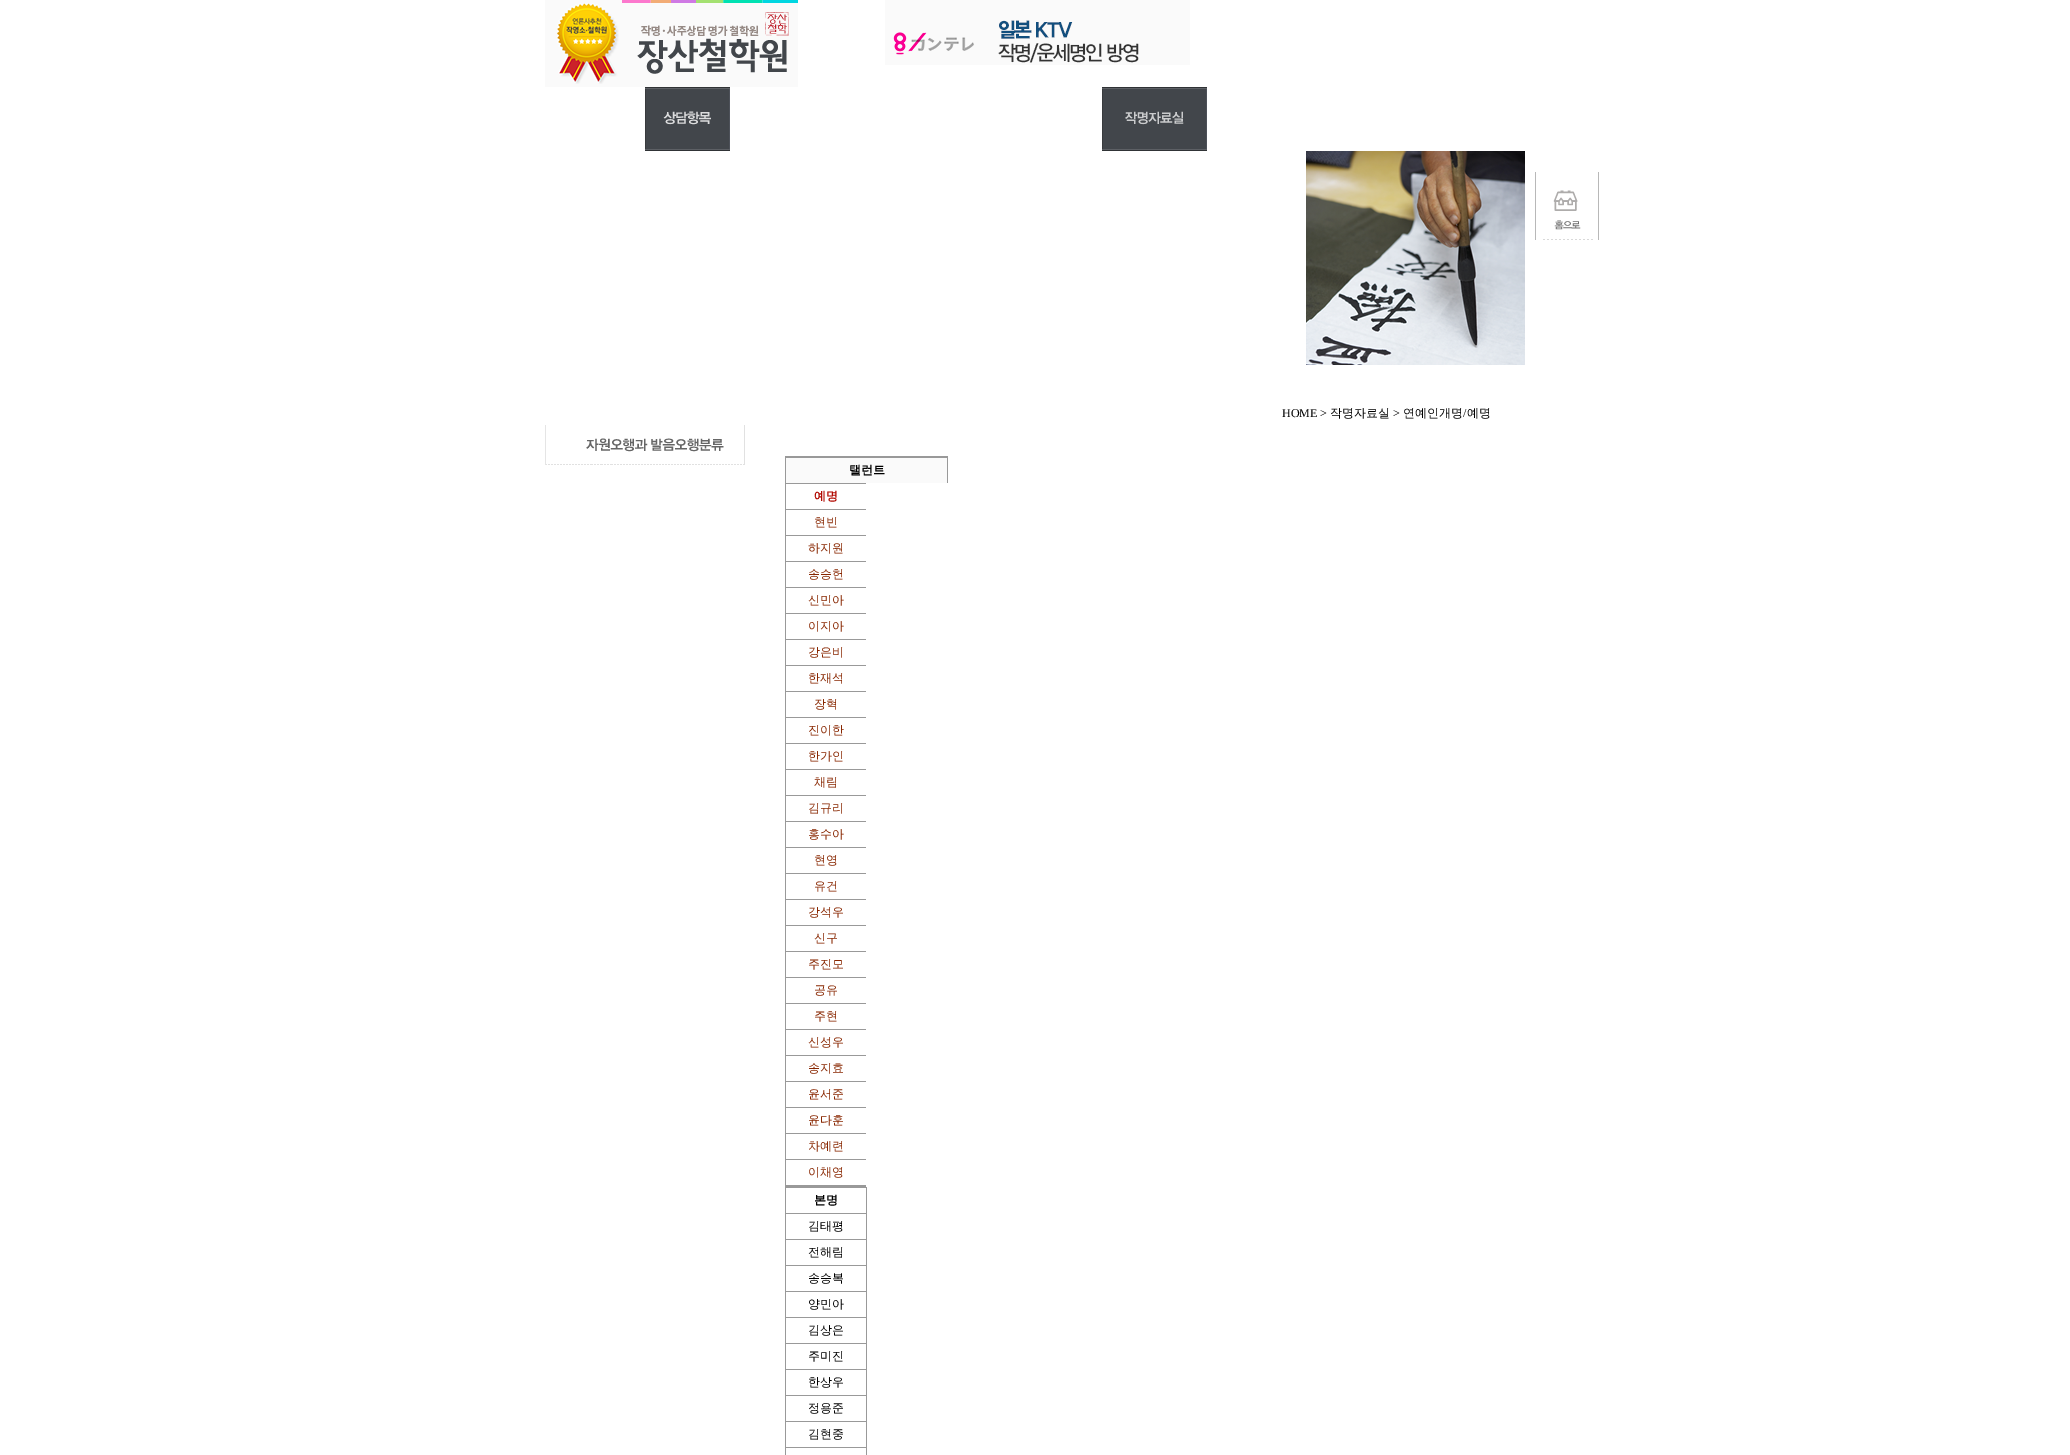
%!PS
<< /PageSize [2070 1455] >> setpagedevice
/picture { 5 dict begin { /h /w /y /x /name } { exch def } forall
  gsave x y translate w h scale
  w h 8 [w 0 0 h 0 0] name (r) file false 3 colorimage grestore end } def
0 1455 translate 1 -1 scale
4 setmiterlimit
1 setgray
0 0 2070 1455 rectfill
(img1.rgb) 545 0 253 87 picture
(img2.rgb) 885 0 305 65 picture
(img3.rgb) 645 87 85 64 picture
(img4.rgb) 1102 87 105 64 picture
(img5.rgb) 1306 151 219 214 picture
(img6.rgb) 1535 172 64 68 picture
(img7.rgb) 545 425 200 40 picture
/LiberationSerif-Regular [12 0 0 -12 0 0] selectfont
0 setgray
1282 417 moveto (HOME >) show
/WenQuanYiZenHei-Medium [12 0 0 -12 0 0] selectfont
1330 417 moveto (작명자료실) show
1403 417 moveto (연예인개명 예명) show
/LiberationSerif-Regular [12 0 0 -12 0 0] selectfont
1393 417 moveto (>) show
1463 417 moveto (/) show
0.98 setgray
786 458 161 25 rectfill
0.6 setgray
785 456 163 2 rectfill
947 456 1 27 rectfill
785 456 1 27 rectfill
/WenQuanYiZenHei-Bold [12 0 0 -12 0 0] selectfont
0 setgray
849 474 moveto (탤런트) show
0.6 setgray
785 483 81 1 rectfill
785 483 1 26 rectfill
0.694 0.031 0 setrgbcolor
814 500 moveto (예명) show
0.6 setgray
785 509 81 1 rectfill
785 509 1 26 rectfill
/WenQuanYiZenHei-Medium [12 0 0 -12 0 0] selectfont
0.533 0.149 0 setrgbcolor
814 526 moveto (현빈) show
0.6 setgray
785 535 81 1 rectfill
785 535 1 26 rectfill
0.533 0.149 0 setrgbcolor
808 552 moveto (하지원) show
0.6 setgray
785 561 81 1 rectfill
785 561 1 26 rectfill
0.533 0.149 0 setrgbcolor
808 578 moveto (송승헌) show
0.6 setgray
785 587 81 1 rectfill
785 587 1 26 rectfill
0.533 0.149 0 setrgbcolor
808 604 moveto (신민아) show
0.6 setgray
785 613 81 1 rectfill
785 613 1 26 rectfill
0.533 0.149 0 setrgbcolor
808 630 moveto (이지아) show
0.6 setgray
785 639 81 1 rectfill
785 639 1 26 rectfill
0.533 0.149 0 setrgbcolor
808 656 moveto (강은비) show
0.6 setgray
785 665 81 1 rectfill
785 665 1 26 rectfill
0.533 0.149 0 setrgbcolor
808 682 moveto (한재석) show
0.6 setgray
785 691 81 1 rectfill
785 691 1 26 rectfill
0.533 0.149 0 setrgbcolor
814 708 moveto (장혁) show
0.6 setgray
785 717 81 1 rectfill
785 717 1 26 rectfill
0.533 0.149 0 setrgbcolor
808 734 moveto (진이한) show
0.6 setgray
785 743 81 1 rectfill
785 743 1 26 rectfill
0.533 0.149 0 setrgbcolor
808 760 moveto (한가인) show
0.6 setgray
785 769 81 1 rectfill
785 769 1 26 rectfill
0.533 0.149 0 setrgbcolor
814 786 moveto (채림) show
0.6 setgray
785 795 81 1 rectfill
785 795 1 26 rectfill
0.533 0.149 0 setrgbcolor
808 812 moveto (김규리) show
0.6 setgray
785 821 81 1 rectfill
785 821 1 26 rectfill
0.533 0.149 0 setrgbcolor
808 838 moveto (홍수아) show
0.6 setgray
785 847 81 1 rectfill
785 847 1 26 rectfill
0.533 0.149 0 setrgbcolor
814 864 moveto (현영) show
0.6 setgray
785 873 81 1 rectfill
785 873 1 26 rectfill
0.533 0.149 0 setrgbcolor
814 890 moveto (유건) show
0.6 setgray
785 899 81 1 rectfill
785 899 1 26 rectfill
0.533 0.149 0 setrgbcolor
808 916 moveto (강석우) show
0.6 setgray
785 925 81 1 rectfill
785 925 1 26 rectfill
0.533 0.149 0 setrgbcolor
814 942 moveto (신구) show
0.6 setgray
785 951 81 1 rectfill
785 951 1 26 rectfill
0.533 0.149 0 setrgbcolor
808 968 moveto (주진모) show
0.6 setgray
785 977 81 1 rectfill
785 977 1 26 rectfill
0.533 0.149 0 setrgbcolor
814 994 moveto (공유) show
0.6 setgray
785 1003 81 1 rectfill
785 1003 1 26 rectfill
0.533 0.149 0 setrgbcolor
814 1020 moveto (주현) show
0.6 setgray
785 1029 81 1 rectfill
785 1029 1 26 rectfill
0.533 0.149 0 setrgbcolor
808 1046 moveto (신성우) show
0.6 setgray
785 1055 81 1 rectfill
785 1055 1 26 rectfill
0.533 0.149 0 setrgbcolor
808 1072 moveto (송지효) show
0.6 setgray
785 1081 81 1 rectfill
785 1081 1 26 rectfill
0.533 0.149 0 setrgbcolor
808 1098 moveto (윤서준) show
0.6 setgray
785 1107 81 1 rectfill
785 1107 1 26 rectfill
0.533 0.149 0 setrgbcolor
808 1124 moveto (윤다훈) show
0.6 setgray
785 1133 81 1 rectfill
785 1133 1 26 rectfill
0.533 0.149 0 setrgbcolor
808 1150 moveto (차예련) show
0.6 setgray
785 1159 81 1 rectfill
785 1185 81 2 rectfill
785 1159 1 28 rectfill
0.533 0.149 0 setrgbcolor
808 1176 moveto (이채영) show
0.6 setgray
785 1187 82 1 rectfill
866 1187 1 26 rectfill
785 1187 1 26 rectfill
/WenQuanYiZenHei-Bold [12 0 0 -12 0 0] selectfont
0 setgray
814 1204 moveto (본명) show
0.6 setgray
785 1213 82 1 rectfill
866 1213 1 26 rectfill
785 1213 1 26 rectfill
/WenQuanYiZenHei-Medium [12 0 0 -12 0 0] selectfont
0 setgray
808 1230 moveto (김태평) show
0.6 setgray
785 1239 82 1 rectfill
866 1239 1 26 rectfill
785 1239 1 26 rectfill
0 setgray
808 1256 moveto (전해림) show
0.6 setgray
785 1265 82 1 rectfill
866 1265 1 26 rectfill
785 1265 1 26 rectfill
0 setgray
808 1282 moveto (송승복) show
0.6 setgray
785 1291 82 1 rectfill
866 1291 1 26 rectfill
785 1291 1 26 rectfill
0 setgray
808 1308 moveto (양민아) show
0.6 setgray
785 1317 82 1 rectfill
866 1317 1 26 rectfill
785 1317 1 26 rectfill
0 setgray
808 1334 moveto (김상은) show
0.6 setgray
785 1343 82 1 rectfill
866 1343 1 26 rectfill
785 1343 1 26 rectfill
0 setgray
808 1360 moveto (주미진) show
0.6 setgray
785 1369 82 1 rectfill
866 1369 1 26 rectfill
785 1369 1 26 rectfill
0 setgray
808 1386 moveto (한상우) show
0.6 setgray
785 1395 82 1 rectfill
866 1395 1 26 rectfill
785 1395 1 26 rectfill
0 setgray
808 1412 moveto (정용준) show
0.6 setgray
785 1421 82 1 rectfill
866 1421 1 26 rectfill
785 1421 1 26 rectfill
0 setgray
808 1438 moveto (김현중) show
0.6 setgray
785 1447 82 1 rectfill
866 1447 1 8 rectfill
785 1447 1 8 rectfill
showpage
